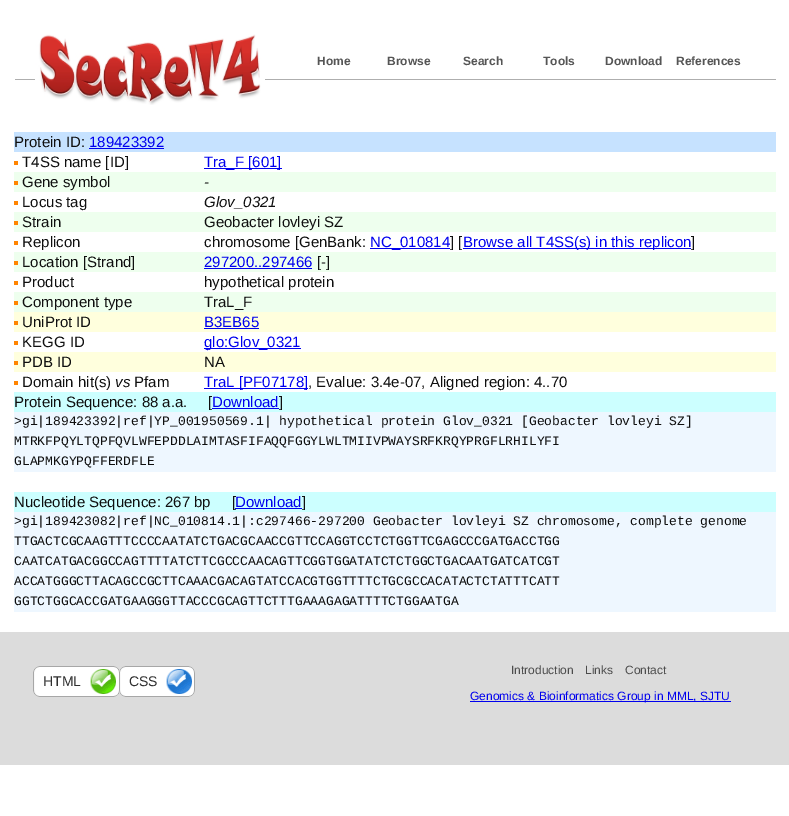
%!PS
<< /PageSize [789 816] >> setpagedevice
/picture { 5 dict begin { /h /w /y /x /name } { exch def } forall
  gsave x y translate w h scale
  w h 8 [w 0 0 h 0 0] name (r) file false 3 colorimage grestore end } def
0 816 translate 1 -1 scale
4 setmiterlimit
1 setgray
0 0 789 816 rectfill
0.682 setgray
15 79 761 1 rectfill
(img1.rgb) 35 34 230 71 picture
/LiberationSans-Bold [12 0 0 -12 0 0] selectfont
0.333 setgray
317 65 moveto (Home) show
387 65 moveto (Browse) show
463 65 moveto (Search) show
543 65 moveto (Tools) show
605 65 moveto (Download) show
676 65 moveto (References) show
0.776 0.886 1 setrgbcolor
14 132 762 20 rectfill
/LiberationSans-Regular [15 0 0 -15 0 0] selectfont
0.059 setgray
14 147 moveto (Protein ID:) show
0 0 0.933 setrgbcolor
89 147 moveto (189423392) show
89 148 75 1 rectfill
1 0.518 0 setrgbcolor
14 161 4 4 rectfill
0.059 setgray
22 167 moveto (T4SS name [ID]) show
0 0 0.933 setrgbcolor
204 168 78 1 rectfill
204 167 moveto (Tra_F [601]) show
0.933 1 0.933 setrgbcolor
14 172 762 20 rectfill
1 0.518 0 setrgbcolor
14 181 4 4 rectfill
0.059 setgray
22 187 moveto (Gene symbol) show
/LiberationSans-Italic [15 0 0 -15 0 0] selectfont
204 187 moveto (-) show
1 0.518 0 setrgbcolor
14 201 4 4 rectfill
/LiberationSans-Regular [15 0 0 -15 0 0] selectfont
0.059 setgray
22 207 moveto (Locus tag) show
/LiberationSans-Italic [15 0 0 -15 0 0] selectfont
204 207 moveto (Glov_0321) show
0.933 1 0.933 setrgbcolor
14 212 762 20 rectfill
1 0.518 0 setrgbcolor
14 221 4 4 rectfill
/LiberationSans-Regular [15 0 0 -15 0 0] selectfont
0.059 setgray
22 227 moveto (Strain) show
204 227 moveto (Geobacter lovleyi SZ) show
1 0.518 0 setrgbcolor
14 241 4 4 rectfill
0.059 setgray
22 247 moveto (Replicon) show
204 247 moveto (chromosome [GenBank:) show
0 0 0.933 setrgbcolor
370 248 80 1 rectfill
370 247 moveto (NC_010814) show
0.059 setgray
450 247 moveto (] [) show
0 0 0.933 setrgbcolor
463 248 228 1 rectfill
463 247 moveto (Browse all T4SS\(s\) in this replicon) show
0.059 setgray
691 247 moveto (]) show
0.933 1 0.933 setrgbcolor
14 252 762 20 rectfill
1 0.518 0 setrgbcolor
14 261 4 4 rectfill
0.059 setgray
22 267 moveto (Location [Strand]) show
0 0 0.933 setrgbcolor
204 267 moveto (297200..297466) show
204 268 108 1 rectfill
0.059 setgray
317 267 moveto ([-]) show
1 0.518 0 setrgbcolor
14 281 4 4 rectfill
0.059 setgray
22 287 moveto (Product) show
204 287 moveto (hypothetical protein) show
0.933 1 0.933 setrgbcolor
14 292 762 20 rectfill
1 0.518 0 setrgbcolor
14 301 4 4 rectfill
0.059 setgray
22 307 moveto (Component type) show
204 307 moveto (TraL_F) show
1 1 0.867 setrgbcolor
14 312 762 20 rectfill
1 0.518 0 setrgbcolor
14 321 4 4 rectfill
0.059 setgray
22 327 moveto (UniProt ID) show
0 0 0.933 setrgbcolor
204 327 moveto (B3EB65) show
204 328 55 1 rectfill
1 0.518 0 setrgbcolor
14 341 4 4 rectfill
0.059 setgray
22 347 moveto (KEGG ID) show
0 0 0.933 setrgbcolor
204 348 97 1 rectfill
204 347 moveto (glo:Glov_0321) show
1 1 0.867 setrgbcolor
14 352 762 20 rectfill
1 0.518 0 setrgbcolor
14 361 4 4 rectfill
0.059 setgray
22 367 moveto (PDB ID) show
204 367 moveto (NA) show
1 0.518 0 setrgbcolor
14 381 4 4 rectfill
0.059 setgray
22 387 moveto (Domain hit\(s\)) show
/LiberationSans-Italic [15 0 0 -15 0 0] selectfont
115 387 moveto (vs) show
/LiberationSans-Regular [15 0 0 -15 0 0] selectfont
134 387 moveto (Pfam) show
0 0 0.933 setrgbcolor
204 388 104 1 rectfill
204 387 moveto (TraL [PF07178]) show
0.059 setgray
308 387 moveto (, Evalue: 3.4e-07, Aligned region: 4..70) show
0.8 1 1 setrgbcolor
14 392 762 20 rectfill
0.059 setgray
14 407 moveto (Protein Sequence: 88 a.a.     [) show
0 0 0.933 setrgbcolor
212 407 moveto (Download) show
212 408 67 1 rectfill
0.059 setgray
279 407 moveto (]) show
0.933 0.969 1 setrgbcolor
14 412 762 60 rectfill
/LiberationMono-Regular [13 0 0 -13 0 0] selectfont
0.059 setgray
14 425 moveto (>gi|189423392|ref|YP_001950569.1| hypothetical protein Glov_0321 [Geobacter lovleyi SZ]) show
14 445 moveto (MTRKFPQYLTQPFQVLWFEPDDLAIMTASFIFAQQFGGYLWLTMIIVPWAYSRFKRQYPRGFLRHILYFI) show
14 465 moveto (GLAPMKGYPQFFERDFLE) show
0.8 1 1 setrgbcolor
14 492 762 20 rectfill
/LiberationSans-Regular [15 0 0 -15 0 0] selectfont
0.059 setgray
14 507 moveto (Nucleotide Sequence: 267 bp     [) show
0 0 0.933 setrgbcolor
235 507 moveto (Download) show
235 508 67 1 rectfill
0.059 setgray
302 507 moveto (]) show
0.933 0.969 1 setrgbcolor
14 512 762 100 rectfill
/LiberationMono-Regular [13 0 0 -13 0 0] selectfont
0.059 setgray
14 525 moveto (>gi|189423082|ref|NC_010814.1|:c297466-297200 Geobacter lovleyi SZ chromosome, complete genome) show
14 545 moveto (TTGACTCGCAAGTTTCCCCAATATCTGACGCAACCGTTCCAGGTCCTCTGGTTCGAGCCCGATGACCTGG) show
14 565 moveto (CAATCATGACGGCCAGTTTTATCTTCGCCCAACAGTTCGGTGGATATCTCTGGCTGACAATGATCATCGT) show
14 585 moveto (ACCATGGGCTTACAGCCGCTTCAAACGACAGTATCCACGTGGTTTTCTGCGCCACATACTCTATTTCATT) show
14 605 moveto (GGTCTGGCACCGATGAAGGGTTACCCGCAGTTCTTTGAAAGAGATTTTCTGGAATGA) show
0.863 setgray
0 632 789 133 rectfill
/LiberationSans-Regular [12 0 0 -12 0 0] selectfont
0.298 setgray
511 674 moveto (Introduction) show
585 674 moveto (Links) show
625 674 moveto (Contact) show
(img2.rgb) 33 666 86 31 picture
/LiberationSans-Regular [14 0 0 -14 0 0] selectfont
0.184 setgray
43 686 moveto (HTML) show
(img3.rgb) 119 666 76 31 picture
129 686 moveto (CSS) show
0 0 0.933 setrgbcolor
470 701 261 1 rectfill
/LiberationSans-Regular [12 0 0 -12 0 0] selectfont
470 700 moveto (Genomics & Bioinformatics Group in MML, SJTU) show
showpage
